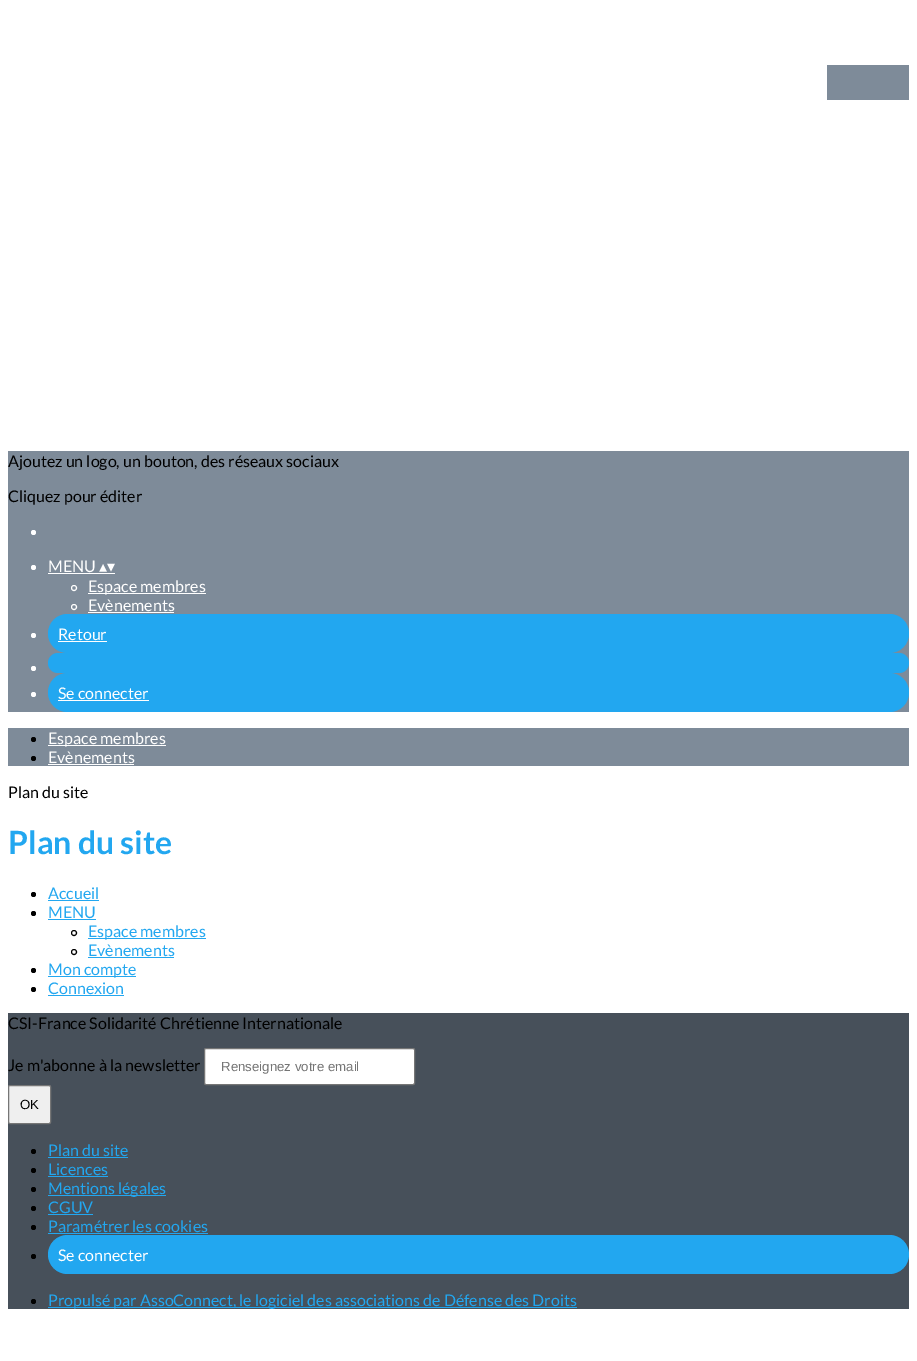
%!PS
<< /PageSize [917 1361] >> setpagedevice
/roundrect { 5 dict begin { /r /h /w /y /x } { exch def } forall
  x r add y moveto x w add y 2 copy h add r arct x w add y h add x 1 index r arct
  x y h add x y r arct x y 2 copy exch w add exch r arct closepath end } def
0 1361 translate 1 -1 scale
4 setmiterlimit
1 setgray
0 0 917 1361 rectfill
0.494 0.545 0.6 setrgbcolor
827 65 82 35 rectfill
8 451 901 261 rectfill
/Lato-Regular [16 0 0 -16 0 0] selectfont
0 setgray
8 467 moveto (Ajoutez un logo, un bouton, des réseaux sociaux) show
8 502 moveto (Cliquez pour éditer) show
1 setgray
newpath 33.5 532.5 2.5 0 360 arc closepath fill
newpath 33.5 567.5 2.5 0 360 arc closepath fill
48 572 moveto (MENU) show
48 573 67 1 rectfill
/DejaVuSans-Regular [16 0 0 -16 0 0] selectfont
99 572 moveto (▴▾) show
newpath 74 588 2.5 0 360 arc closepath stroke
88 593 118 1 rectfill
/Lato-Regular [16 0 0 -16 0 0] selectfont
88 592 moveto (Espace membres) show
newpath 74 607 2.5 0 360 arc closepath stroke
88 611 moveto (Evènements) show
88 612 86 1 rectfill
newpath 33.5 635.5 2.5 0 360 arc closepath fill
0.133 0.655 0.941 setrgbcolor
48 614 861 39 19.5 roundrect fill
1 setgray
58 640 moveto (Retour) show
58 641 49 1 rectfill
newpath 33.5 668.5 2.5 0 360 arc closepath fill
0.133 0.655 0.941 setrgbcolor
48 653 861 20 10 roundrect fill
1 setgray
newpath 33.5 694.5 2.5 0 360 arc closepath fill
0.133 0.655 0.941 setrgbcolor
48 673 861 39 19.5 roundrect fill
1 setgray
58 699 moveto (Se connecter) show
58 700 91 1 rectfill
0.494 0.545 0.6 setrgbcolor
8 728 901 38 rectfill
0 setgray
newpath 33.5 739.5 2.5 0 360 arc closepath fill
1 setgray
48 745 118 1 rectfill
48 744 moveto (Espace membres) show
0 setgray
newpath 33.5 758.5 2.5 0 360 arc closepath fill
1 setgray
48 763 moveto (Evènements) show
48 764 86 1 rectfill
0 setgray
8 798 moveto (Plan du site) show
/Lato-Bold [32 0 0 -32 0 0] selectfont
0.133 0.655 0.941 setrgbcolor
8 854 moveto (Plan du site) show
0 setgray
newpath 33.5 894.5 2.5 0 360 arc closepath fill
/Lato-Regular [16 0 0 -16 0 0] selectfont
0.133 0.655 0.941 setrgbcolor
48 899 moveto (Accueil) show
48 900 51 1 rectfill
0 setgray
newpath 33.5 913.5 2.5 0 360 arc closepath fill
0.133 0.655 0.941 setrgbcolor
48 918 moveto (MENU) show
48 919 48 1 rectfill
0 setgray
newpath 74 933 2.5 0 360 arc closepath stroke
0.133 0.655 0.941 setrgbcolor
88 938 118 1 rectfill
88 937 moveto (Espace membres) show
0 setgray
newpath 74 952 2.5 0 360 arc closepath stroke
0.133 0.655 0.941 setrgbcolor
88 956 moveto (Evènements) show
88 957 86 1 rectfill
0 setgray
newpath 33.5 970.5 2.5 0 360 arc closepath fill
0.133 0.655 0.941 setrgbcolor
48 976 88 1 rectfill
48 975 moveto (Mon compte) show
0 setgray
newpath 33.5 989.5 2.5 0 360 arc closepath fill
0.133 0.655 0.941 setrgbcolor
48 994 moveto (Connexion) show
48 995 76 1 rectfill
0.278 0.314 0.353 setrgbcolor
8 1013 901 296 rectfill
0 setgray
8 1029 moveto (CSI-France Solidarité Chrétienne Internationale) show
8 1071 moveto (Je m'abonne à la newsletter) show
1 setgray
204.5 1048.5 210 36 1.5 roundrect gsave fill grestore
0.463 setgray
stroke
/LiberationSans-Regular [13.25 0 0 -13.25 0 0] selectfont
0.459 setgray
221 1071 moveto (Renseignez votre email) show
0.937 setgray
8.5 1085.5 42 38 1.5 roundrect gsave fill grestore
0.463 setgray
stroke
0 setgray
20 1109 moveto (OK) show
newpath 33.5 1151.5 2.5 0 360 arc closepath fill
/Lato-Regular [16 0 0 -16 0 0] selectfont
0.133 0.655 0.941 setrgbcolor
48 1156 moveto (Plan du site) show
48 1157 80 1 rectfill
0 setgray
newpath 33.5 1170.5 2.5 0 360 arc closepath fill
0.133 0.655 0.941 setrgbcolor
48 1175 moveto (Licences) show
48 1176 60 1 rectfill
0 setgray
newpath 33.5 1189.5 2.5 0 360 arc closepath fill
0.133 0.655 0.941 setrgbcolor
48 1195 118 1 rectfill
48 1194 moveto (Mentions légales) show
0 setgray
newpath 33.5 1208.5 2.5 0 360 arc closepath fill
0.133 0.655 0.941 setrgbcolor
48 1213 moveto (CGUV) show
48 1214 45 1 rectfill
0 setgray
newpath 33.5 1227.5 2.5 0 360 arc closepath fill
0.133 0.655 0.941 setrgbcolor
48 1232 moveto (Paramétrer les cookies) show
48 1233 160 1 rectfill
0 setgray
newpath 33.5 1256.5 2.5 0 360 arc closepath fill
0.133 0.655 0.941 setrgbcolor
48 1235 861 39 19.5 roundrect fill
1 setgray
58 1261 moveto (Se connecter) show
0 setgray
newpath 33.5 1301.5 2.5 0 360 arc closepath fill
0.133 0.655 0.941 setrgbcolor
48 1307 529 1 rectfill
48 1306 moveto (Propulsé par AssoConnect, le logiciel des associations de Défense des Droits) show
showpage
